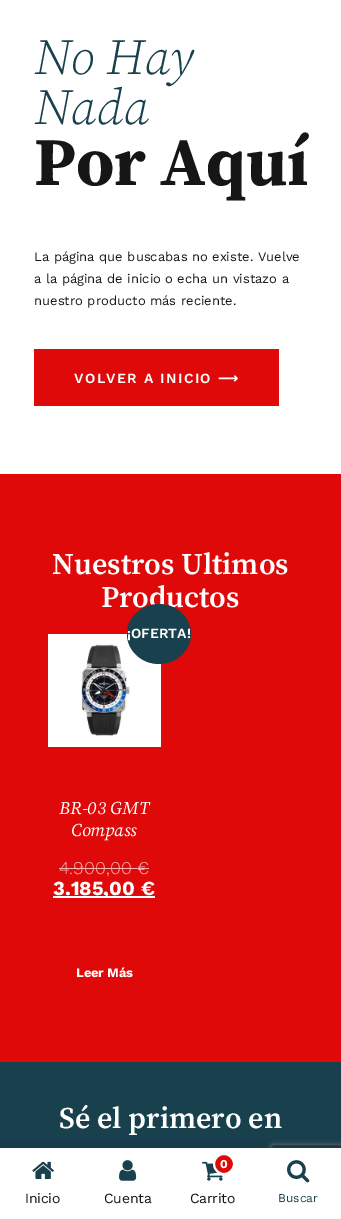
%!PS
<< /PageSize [341 1219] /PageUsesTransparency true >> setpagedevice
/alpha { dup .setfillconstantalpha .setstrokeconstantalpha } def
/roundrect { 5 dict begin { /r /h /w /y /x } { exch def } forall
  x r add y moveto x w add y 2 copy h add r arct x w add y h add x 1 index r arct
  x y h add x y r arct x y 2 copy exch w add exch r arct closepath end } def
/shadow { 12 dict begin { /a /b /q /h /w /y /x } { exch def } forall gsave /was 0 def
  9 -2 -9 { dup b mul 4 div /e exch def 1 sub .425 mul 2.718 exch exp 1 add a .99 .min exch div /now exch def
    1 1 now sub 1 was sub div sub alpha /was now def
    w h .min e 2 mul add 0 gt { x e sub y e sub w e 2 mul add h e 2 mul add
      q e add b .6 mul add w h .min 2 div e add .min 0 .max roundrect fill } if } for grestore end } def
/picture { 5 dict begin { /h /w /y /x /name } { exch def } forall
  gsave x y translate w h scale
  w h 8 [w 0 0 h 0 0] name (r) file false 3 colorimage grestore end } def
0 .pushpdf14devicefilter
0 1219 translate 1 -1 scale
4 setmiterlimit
1 setgray
0 0 341 1219 rectfill
/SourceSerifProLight-LightItalic [50 0 0 -50 0 0] selectfont
0.094 0.251 0.302 setrgbcolor
34 74 moveto (No Hay) show
34 124 moveto (Nada) show
/SourceSerifPro-Bold [68 0 0 -68 0 0] selectfont
0.086 setgray
34 185 moveto (Por Aquí) show
/WorkSans-Regular [13 0 0 -13 0 0] selectfont
34 261 moveto (La página que buscabas no existe. Vuelve) show
34 283 moveto (a la página de inicio o echa un vistazo a) show
34 305 moveto (nuestro producto más reciente.) show
0.875 0.035 0.035 setrgbcolor
34 349 245 57 rectfill
/WorkSans-SemiBold [14 0 0 -14 0 0] selectfont
1 setgray
74 383 moveto 1.4 0 (VOLVER A INICIO) ashow
/DejaVuSans-Bold [14 0 0 -14 0 0] selectfont
218 383 moveto 1.4 0 (⟶) ashow
0.875 0.035 0.035 setrgbcolor
0 474 341 588 rectfill
/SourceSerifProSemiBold-SemiBold [30 0 0 -30 0 0] selectfont
1 setgray
52 574 moveto (Nuestros Ultimos) show
101 607 moveto (Productos) show
(img1.rgb) 48 634 113 113 picture
0.094 0.251 0.302 setrgbcolor
newpath 159 604 moveto 176.5 604 191 617.5 191 634 curveto 191 650.5 176.5 664 159 664 curveto 141.5 664 127 650.5 127 634 curveto 127 617.5 141.5 604 159 604 curveto closepath fill
/WorkSans-SemiBold [14 0 0 -14 0 0] selectfont
1 setgray
127 638 moveto (¡OFERTA!) show
/SourceSerifPro-Italic [18 0 0 -18 0 0] selectfont
59 814 moveto (BR-03 GMT) show
71 836 moveto (Compass) show
/WorkSans-Light [18 0 0 -18 0 0] selectfont
0.961 0.71 0.71 setrgbcolor
59 874 moveto (4.900,00 €) show
59 868 90 1 rectfill
1 setgray
53 896 102 2 rectfill
/WorkSans-Bold [20 0 0 -20 0 0] selectfont
53 895 moveto (3.185,00 €) show
/WorkSans-Bold [13 0 0 -13 0 0] selectfont
76 977 moveto -0.25 0 (Leer Más) ashow
0.094 0.251 0.302 setrgbcolor
0 1062 341 86 rectfill
/SourceSerifProSemiBold-SemiBold [30 0 0 -30 0 0] selectfont
1 setgray
59 1128 moveto (Sé el primero en) show
gsave
newpath 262 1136 moveto 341 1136 lineto 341 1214 lineto 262 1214 lineto closepath 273 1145 moveto 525 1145 lineto 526 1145 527 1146 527 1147 curveto 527 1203 lineto 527 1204 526 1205 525 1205 curveto 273 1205 lineto 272 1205 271 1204 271 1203 curveto 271 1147 lineto 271 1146 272 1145 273 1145 curveto closepath eoclip newpath
0.502 setgray
271 1145 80 60 2 2.5 1 shadow
grestore
0 setgray
0 1143 341 71 0 5 0.1 shadow
1 setgray
0 1148 341 71 rectfill
(img2.rgb) 32 1161 22 18 picture
/WorkSans-Regular [14 0 0 -14 0 0] selectfont
0.086 setgray
25 1203 moveto -0.25 0 (Inicio) ashow
(img3.rgb) 119 1160 18 21 picture
104 1203 moveto -0.25 0 (Cuenta) ashow
(img4.rgb) 202 1161 21 20 picture
0.875 0.035 0.031 setrgbcolor
newpath 224 1164 10 0 360 arc closepath gsave fill grestore
1 setgray
2 setlinewidth
stroke
/WorkSans-Bold [12 0 0 -12 0 0] selectfont
220 1168 moveto -0.25 0 (0) ashow
/WorkSans-Regular [14 0 0 -14 0 0] selectfont
0.086 setgray
190 1203 moveto -0.25 0 (Carrito) ashow
(img5.rgb) 287 1160 23 23 picture
/WorkSans-Regular [12 0 0 -12 0 0] selectfont
0.094 0.251 0.302 setrgbcolor
278 1202 moveto (Buscar) show
.poppdf14devicefilter showpage
